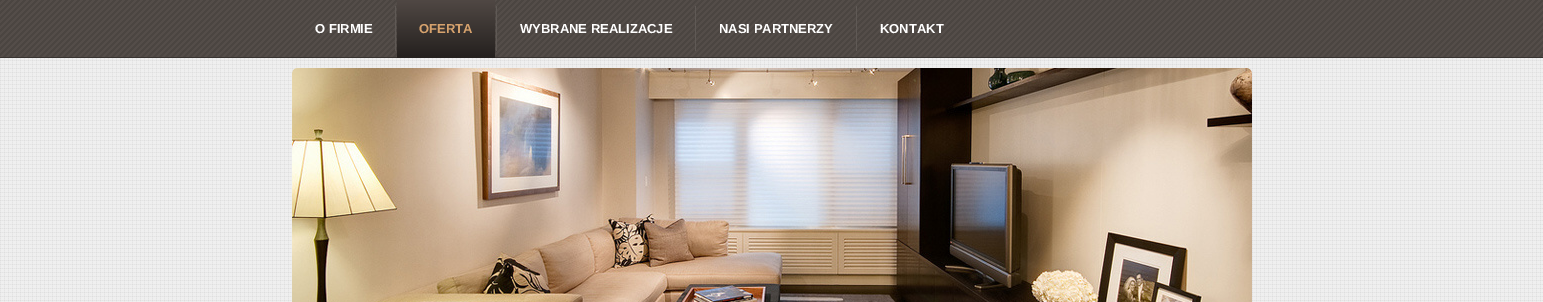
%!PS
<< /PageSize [1543 302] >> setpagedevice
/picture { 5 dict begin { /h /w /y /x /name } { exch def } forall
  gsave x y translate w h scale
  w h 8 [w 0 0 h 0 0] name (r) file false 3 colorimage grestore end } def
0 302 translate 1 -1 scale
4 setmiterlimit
0.933 setgray
0 0 1543 302 rectfill
(img1.rgb) 0 58 1543 244 picture
0.314 0.286 0.271 setrgbcolor
0 0 1543 57 rectfill
(img2.rgb) 0 0 1543 57 picture
0.224 0.204 0.192 setrgbcolor
0 57 1543 1 rectfill
/LiberationSans-Bold [13 0 0 -13 0 0] selectfont
1 setgray
315 33 moveto (O FIRMIE) show
0.373 0.349 0.333 setrgbcolor
395 6 1 45 rectfill
gsave newpath 397 0 moveto 495 0 lineto 495 58 lineto 397 58 lineto closepath clip newpath
<< /ShadingType 2 /ColorSpace /DeviceRGB /Coords [446 0 446 58] /Extend [true true] /Function << /FunctionType 2 /Domain [0 1] /C0 [0.314 0.282 0.267] /C1 [0.141 0.125 0.118] /N 1 >> >> shfill grestore
0.839 0.635 0.427 setrgbcolor
419 33 moveto (OFERTA) show
0.373 0.349 0.333 setrgbcolor
496 6 1 45 rectfill
1 setgray
520 33 moveto (WYBRANE REALIZACJE) show
0.373 0.349 0.333 setrgbcolor
695 6 1 45 rectfill
1 setgray
719 33 moveto (NASI PARTNERZY) show
0.373 0.349 0.333 setrgbcolor
856 6 1 45 rectfill
1 setgray
880 33 moveto (KONTAKT) show
(img3.rgb) 292 68 960 234 picture
showpage
